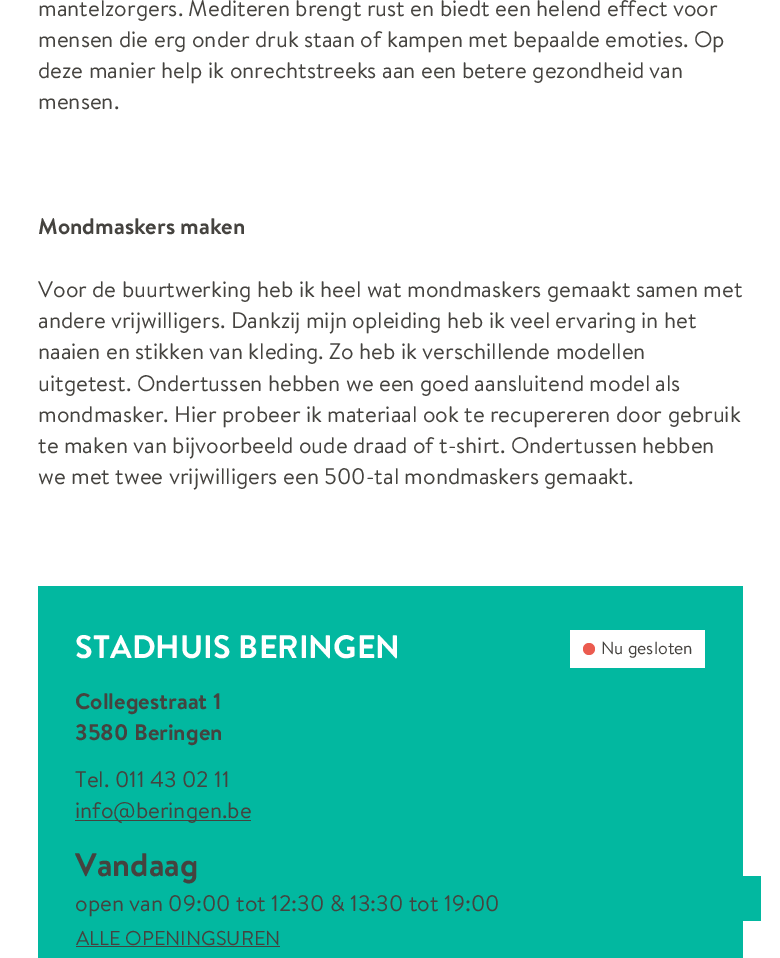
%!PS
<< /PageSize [780 958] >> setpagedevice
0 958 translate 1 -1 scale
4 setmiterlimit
1 setgray
0 0 780 958 rectfill
/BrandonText-Regular [22.5 0 0 -22.5 0 0] selectfont
0.271 0.263 0.247 setrgbcolor
38 16 moveto (mantelzorgers. Mediteren brengt rust en biedt een helend effect voor) show
38 47 moveto (mensen die erg onder druk staan of kampen met bepaalde emoties. Op) show
38 78 moveto (deze manier help ik onrechtstreeks aan een betere gezondheid van) show
38 109 moveto (mensen.) show
/BrandonText-Bold [22.5 0 0 -22.5 0 0] selectfont
38 234 moveto (Mondmaskers maken) show
/BrandonText-Regular [22.5 0 0 -22.5 0 0] selectfont
38 297 moveto (Voor de buurtwerking heb ik heel wat mondmaskers gemaakt samen met) show
38 328 moveto (andere vrijwilligers. Dankzij mijn opleiding heb ik veel ervaring in het) show
38 359 moveto (naaien en stikken van kleding. Zo heb ik verschillende modellen) show
38 391 moveto (uitgetest. Ondertussen hebben we een goed aansluitend model als) show
38 422 moveto (mondmasker. Hier probeer ik materiaal ook te recupereren door gebruik) show
38 453 moveto (te maken van bijvoorbeeld oude draad of t-shirt. Ondertussen hebben) show
38 484 moveto (we met twee vrijwilligers een 500-tal mondmaskers gemaakt.) show
0.008 0.722 0.627 setrgbcolor
38 586 705 372 rectfill
/BrandonText-Bold [32.5 0 0 -32.5 0 0] selectfont
1 setgray
75 658 moveto (STADHUIS BERINGEN) show
570 630 135 38 rectfill
0.922 0.357 0.31 setrgbcolor
newpath 589 649 6 0 360 arc closepath fill
/BrandonText-Regular [17.5 0 0 -17.5 0 0] selectfont
0.271 0.263 0.247 setrgbcolor
601 654 moveto (Nu gesloten) show
/BrandonText-Bold [22.5 0 0 -22.5 0 0] selectfont
75 709 moveto (Collegestraat 1) show
75 740 moveto (3580 Beringen) show
/BrandonText-Regular [22.5 0 0 -22.5 0 0] selectfont
75 787 moveto (Tel. 011 43 02 11) show
75 820 176 1 rectfill
75 818 moveto (info@beringen.be) show
/BrandonText-Bold [32.5 0 0 -32.5 0 0] selectfont
75 876 moveto (Vandaag) show
/BrandonText-Regular [22.5 0 0 -22.5 0 0] selectfont
75 911 moveto (open van 09:00 tot 12:30 & 13:30 tot 19:00) show
/BrandonText-Regular [20 0 0 -20 0 0] selectfont
76 945 moveto (ALLE OPENINGSUREN) show
76 946 204 1 rectfill
0.008 0.722 0.627 setrgbcolor
743 876 18 45 rectfill
showpage
